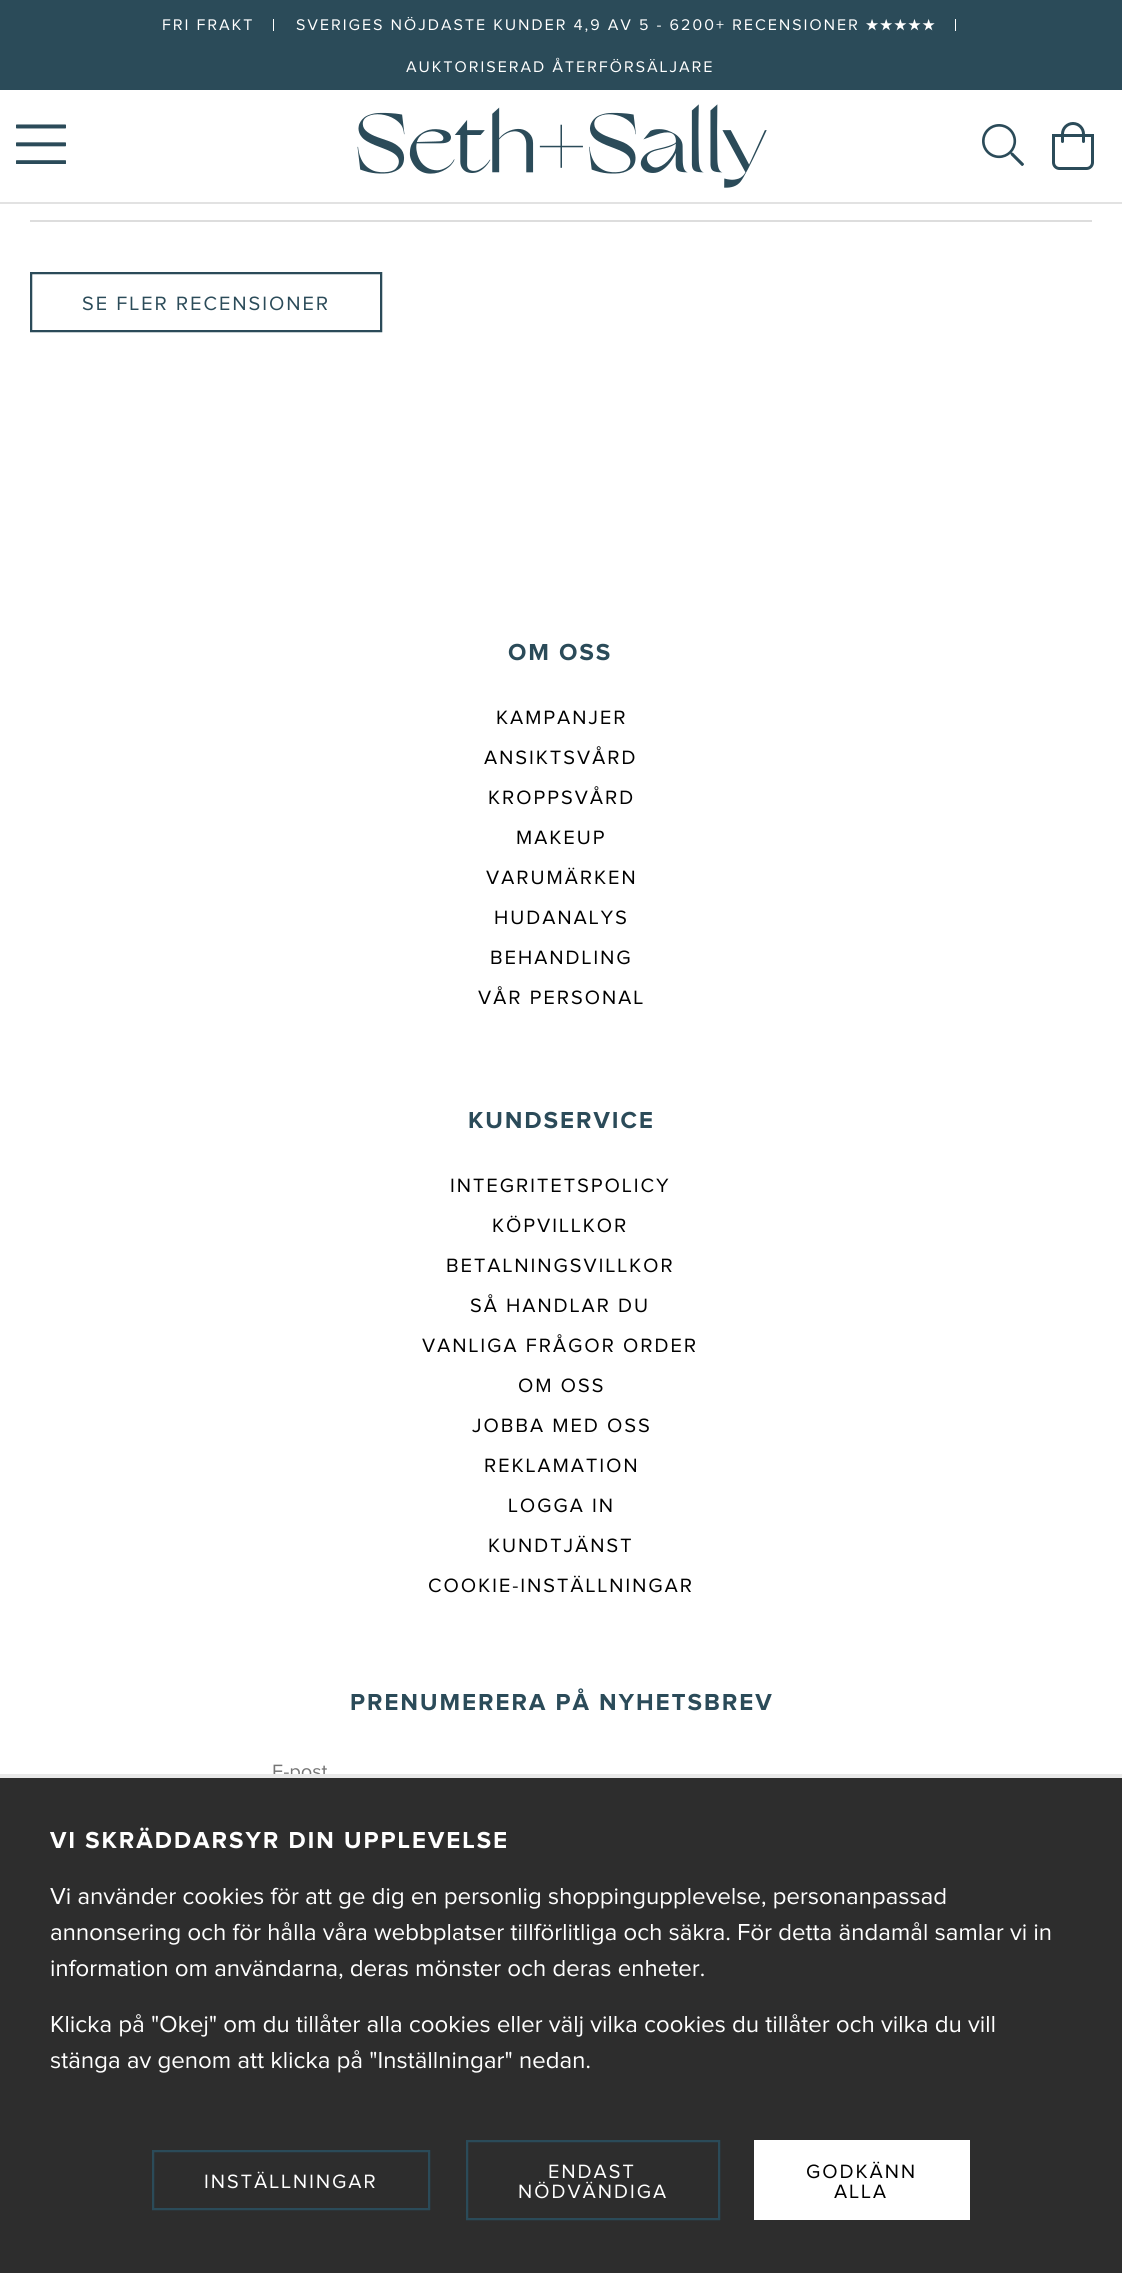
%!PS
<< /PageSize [1122 2273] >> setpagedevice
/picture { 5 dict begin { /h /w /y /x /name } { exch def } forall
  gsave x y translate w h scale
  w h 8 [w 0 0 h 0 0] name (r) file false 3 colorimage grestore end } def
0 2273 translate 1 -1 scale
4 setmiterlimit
1 setgray
0 0 1122 2273 rectfill
0.169 0.294 0.349 setrgbcolor
0 0 1122 90 rectfill
(img1.rgb) 163 19 89 11 picture
1 setgray
273 19 1 12 rectfill
(img2.rgb) 296 16 639 16 picture
955 19 1 12 rectfill
(img3.rgb) 406 57 306 16 picture
0.886 setgray
0 202 1122 2 rectfill
(img4.rgb) 16 124 50 40 picture
(img5.rgb) 357 104 410 84 picture
(img6.rgb) 982 124 42 42 picture
(img7.rgb) 1052 122 42 48 picture
0.867 setgray
30 220 1062 2 rectfill
0.169 0.294 0.349 setrgbcolor
2 setlinewidth
31 273 350 58 rectstroke
(img8.rgb) 82 296 245 15 picture
(img9.rgb) 508 643 102 18 picture
(img10.rgb) 497 710 128 15 picture
(img11.rgb) 484 746 151 19 picture
(img12.rgb) 489 786 144 19 picture
(img13.rgb) 517 830 87 15 picture
(img14.rgb) 486 867 149 18 picture
(img15.rgb) 495 910 131 15 picture
(img16.rgb) 491 950 139 15 picture
(img17.rgb) 478 986 165 19 picture
(img18.rgb) 469 1111 183 18 picture
(img19.rgb) 451 1178 218 15 picture
(img20.rgb) 493 1215 133 18 picture
(img21.rgb) 447 1258 225 15 picture
(img22.rgb) 470 1294 177 19 picture
(img23.rgb) 422 1334 273 19 picture
(img24.rgb) 519 1378 84 15 picture
(img25.rgb) 472 1418 177 15 picture
(img26.rgb) 485 1458 151 15 picture
(img27.rgb) 509 1498 103 15 picture
(img28.rgb) 489 1535 142 18 picture
(img29.rgb) 429 1575 262 18 picture
(img30.rgb) 351 1688 421 23 picture
(img31.rgb) 273 1764 54 10 picture
0.176 setgray
0 1778 1122 495 rectfill
0.914 setgray
0 1774 1122 4 rectfill
(img32.rgb) 50 1827 456 22 picture
(img33.rgb) 50 1887 896 22 picture
(img34.rgb) 51 1922 1000 23 picture
(img35.rgb) 51 1959 653 20 picture
(img36.rgb) 51 2014 944 23 picture
(img37.rgb) 50 2050 540 23 picture
0.169 0.294 0.349 setrgbcolor
153 2151 276 58 rectstroke
(img38.rgb) 205 2171 170 18 picture
467 2141 252 78 rectstroke
(img39.rgb) 549 2164 85 15 picture
(img40.rgb) 519 2181 147 18 picture
1 setgray
754 2140 216 80 rectfill
(img41.rgb) 807 2161 107 18 picture
(img42.rgb) 834 2184 52 14 picture
showpage
